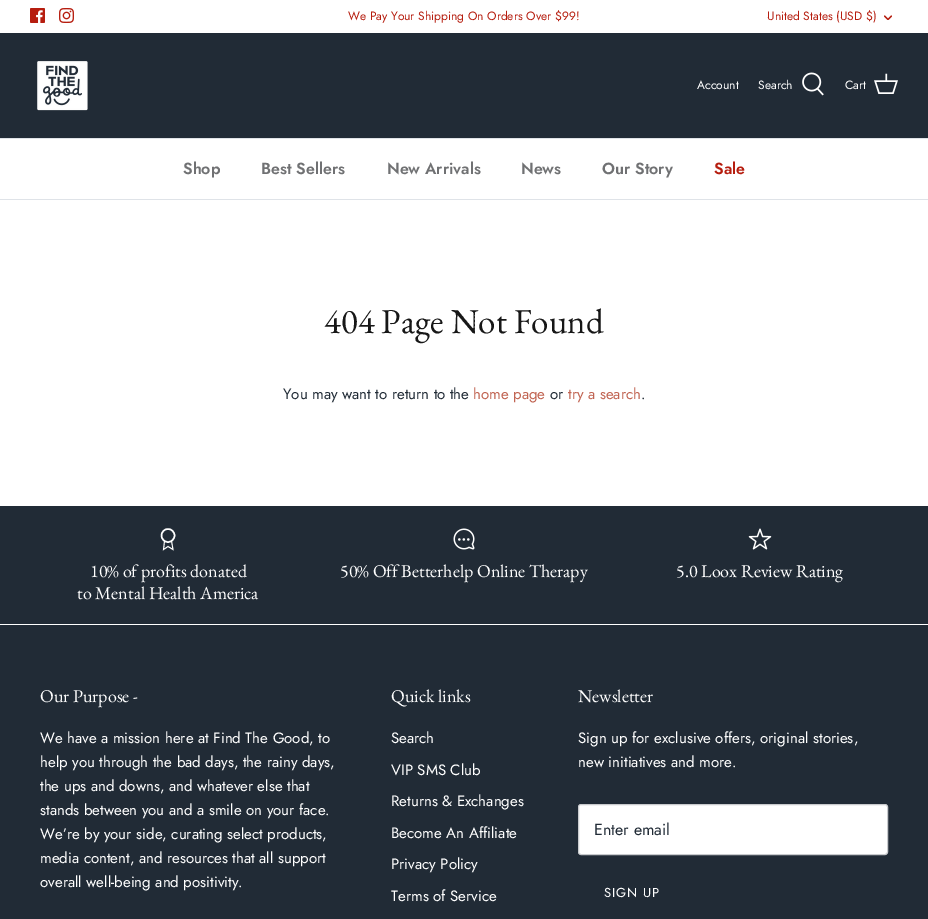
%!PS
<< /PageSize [928 919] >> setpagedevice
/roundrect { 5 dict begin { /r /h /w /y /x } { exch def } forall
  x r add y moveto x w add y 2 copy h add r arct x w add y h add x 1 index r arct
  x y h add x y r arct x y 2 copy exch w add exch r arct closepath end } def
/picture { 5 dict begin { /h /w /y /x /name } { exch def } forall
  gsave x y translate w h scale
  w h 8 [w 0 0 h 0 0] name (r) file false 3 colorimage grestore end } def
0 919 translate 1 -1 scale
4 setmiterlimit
1 setgray
0 0 928 919 rectfill
(img1.rgb) 30 8 15 15 picture
(img2.rgb) 59 8 15 15 picture
/Jost-Regular [12 0 0 -12 0 0] selectfont
0.714 0.114 0.059 setrgbcolor
348 20 moveto (We Pay Your Shipping On Orders Over $99!) show
767 20 moveto (United States \(USD $\)) show
1.2 setlinewidth
1 setlinecap
1 setlinejoin
newpath 884.5 16 moveto 888 19.5 lineto 891.5 16 lineto stroke
0.129 0.169 0.212 setrgbcolor
0 33 928 105 rectfill
0.875 0.89 0.91 setrgbcolor
0 138 928 1 rectfill
(img3.rgb) 37 61 51 50 picture
1 setgray
697 89 moveto (Account) show
758 89 moveto (Search) show
(img4.rgb) 802 72 22 24 picture
845 89 moveto (Cart) show
(img5.rgb) 874 73 24 21 picture
0.875 0.89 0.91 setrgbcolor
0 199 928 1 rectfill
/Jost-SemiBold [16 0 0 -16 0 0] selectfont
0.439 0.443 0.451 setrgbcolor
183 174 moveto (Shop) show
261 174 moveto (Best Sellers) show
387 174 moveto (New Arrivals) show
521 174 moveto (News) show
602 174 moveto (Our Story) show
0.714 0.114 0.059 setrgbcolor
714 174 moveto (Sale) show
/EBGaramond-Regular [35 0 0 -35 0 0] selectfont
0.09 setgray
324 333 moveto (404 Page Not Found) show
/Jost-Regular [15 0 0 -15 0 0] selectfont
0.129 0.169 0.212 setrgbcolor
283 399 moveto (You may want to return to the) show
0.757 0.392 0.322 setrgbcolor
473 399 moveto (home page) show
0.129 0.169 0.212 setrgbcolor
550 399 moveto (or) show
0.757 0.392 0.322 setrgbcolor
568 399 moveto (try a search) show
0.129 0.169 0.212 setrgbcolor
641 399 moveto (.) show
0 506 928 413 rectfill
1 setgray
1.5 setlinewidth
0 setlinecap
0 setlinejoin
newpath 168 535.5 6.5 0 360 arc closepath stroke
0.9 setlinewidth
newpath 164.5 541 moveto 163.5 549.5 lineto 168 546.5 lineto 173 549.5 lineto 171.5 541 lineto stroke
/EBGaramond-Regular [18 0 0 -18 0 0] selectfont
90 577 moveto (10% of profits donated) show
77 599 moveto (to Mental Health America) show
(img6.rgb) 453 528 22 22 picture
340 577 moveto (50% Off Betterhelp Online Therapy) show
(img7.rgb) 748 528 24 22 picture
676 577 moveto (5.0 Loox Review Rating) show
0 624 928 1 rectfill
40 702 moveto (Our Purpose -) show
/Jost-Regular [15 0 0 -15 0 0] selectfont
40 743 moveto (We have a mission here at Find The Good, to) show
40 767 moveto (help you through the bad days, the rainy days,) show
40 791 moveto (the ups and downs, and whatever else that) show
40 815 moveto (stands between you and a smile on your face.) show
40 839 moveto (We’re by your side, curating select products,) show
40 863 moveto (media content, and resources that all support) show
40 887 moveto (overall well-being and positivity.) show
/EBGaramond-Regular [18 0 0 -18 0 0] selectfont
391 702 moveto (Quick links) show
/Jost-Regular [15 0 0 -15 0 0] selectfont
391 743 moveto (Search) show
391 775 moveto (VIP SMS Club) show
391 806 moveto (Returns & Exchanges) show
391 838 moveto (Become An Affiliate) show
391 869 moveto (Privacy Policy) show
391 901 moveto (Terms of Service) show
/EBGaramond-Regular [18 0 0 -18 0 0] selectfont
578 702 moveto (Newsletter) show
/Jost-Regular [15 0 0 -15 0 0] selectfont
578 743 moveto (Sign up for exclusive offers, original stories,) show
578 767 moveto (new initiatives and more.) show
578.5 804.5 309 50 2.5 roundrect gsave fill grestore
0.784 0.792 0.804 setrgbcolor
1 setlinewidth
stroke
/Jost-Regular [16 0 0 -16 0 0] selectfont
0.129 0.169 0.212 setrgbcolor
594 835 moveto (Enter email) show
/Jost-Regular [13 0 0 -13 0 0] selectfont
1 setgray
604 897 moveto 1 0 (SIGN UP) ashow
showpage
